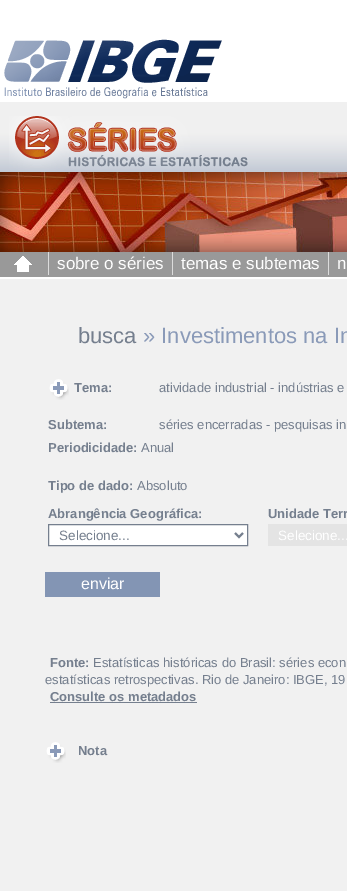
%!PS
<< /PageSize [347 891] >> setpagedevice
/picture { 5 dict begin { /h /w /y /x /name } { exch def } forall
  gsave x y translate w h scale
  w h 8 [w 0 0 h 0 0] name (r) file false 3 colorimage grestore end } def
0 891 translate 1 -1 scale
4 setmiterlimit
1 setgray
0 0 347 891 rectfill
(img1.rgb) 4 39 218 60 picture
(img2.rgb) 0 102 347 70 picture
(img3.rgb) 9 116 239 56 picture
(img4.rgb) 0 172 347 80 picture
0.6 setgray
0 252 347 25 rectfill
(img5.rgb) 14 256 18 16 picture
0.863 setgray
48 252 1 23 rectfill
/LiberationSans-Regular [17 0 0 -17 0 0] selectfont
1 setgray
57 269 moveto (sobre o séries) show
0.863 setgray
172 252 1 23 rectfill
1 setgray
181 269 moveto (temas e subtemas) show
0.863 setgray
328 252 1 23 rectfill
1 setgray
337 269 moveto (n) show
0.945 setgray
0 279 347 612 rectfill
/LiberationSans-Regular [22 0 0 -22 0 0] selectfont
0.459 0.498 0.557 setrgbcolor
78 343 moveto (busca) show
0.541 0.604 0.722 setrgbcolor
143 343 moveto (» Investimentos na In) show
(img6.rgb) 49 379 20 21 picture
/LiberationSans-Bold [13 0 0 -13 0 0] selectfont
0.459 0.498 0.557 setrgbcolor
74 392 moveto (Tema:) show
/LiberationSans-Regular [13 0 0 -13 0 0] selectfont
159 392 moveto (atividade industrial - indústrias e) show
/LiberationSans-Bold [13 0 0 -13 0 0] selectfont
48 429 moveto (Subtema:) show
/LiberationSans-Regular [13 0 0 -13 0 0] selectfont
159 429 moveto (séries encerradas - pesquisas in) show
/LiberationSans-Bold [13 0 0 -13 0 0] selectfont
48 452 moveto (Periodicidade:) show
/LiberationSans-Regular [13 0 0 -13 0 0] selectfont
141 452 moveto (Anual) show
/LiberationSans-Bold [13 0 0 -13 0 0] selectfont
48 490 moveto (Tipo de dado:) show
/LiberationSans-Regular [13 0 0 -13 0 0] selectfont
137 490 moveto (Absoluto) show
/LiberationSans-Bold [13 0 0 -13 0 0] selectfont
48 518 moveto (Abrangência Geográfica:) show
268 518 moveto (Unidade Terr) show
1 setgray
newpath 48.5 524.5 moveto 247.5 524.5 lineto 247.5 545.5 lineto 48.5 545.5 lineto closepath gsave fill grestore
0.459 0.498 0.557 setrgbcolor
stroke
2 setlinewidth
newpath 235 533 moveto 239 537 lineto 243 533 lineto stroke
/LiberationSans-Regular [13.5 0 0 -13.5 0 0] selectfont
59 540 moveto (Selecione...) show
0.894 setgray
268 524 79 22 rectfill
1 setgray
278 540 moveto (Selecione...) show
0.514 0.584 0.706 setrgbcolor
45 572 115 25 rectfill
/LiberationSans-Regular [16 0 0 -16 0 0] selectfont
1 setgray
81 589 moveto (enviar) show
/LiberationSans-Bold [13 0 0 -13 0 0] selectfont
0.459 0.498 0.557 setrgbcolor
50 667 moveto (Fonte:) show
/LiberationSans-Regular [13 0 0 -13 0 0] selectfont
93 667 moveto (Estatísticas históricas do Brasil: séries econ) show
45 684 moveto (estatísticas retrospectivas. Rio de Janeiro: IBGE, 19) show
/LiberationSans-Bold [13 0 0 -13 0 0] selectfont
50 701 moveto (Consulte os metadados) show
50 702 147 1 rectfill
(img6.rgb) 46 742 20 21 picture
78 755 moveto (Nota) show
showpage
